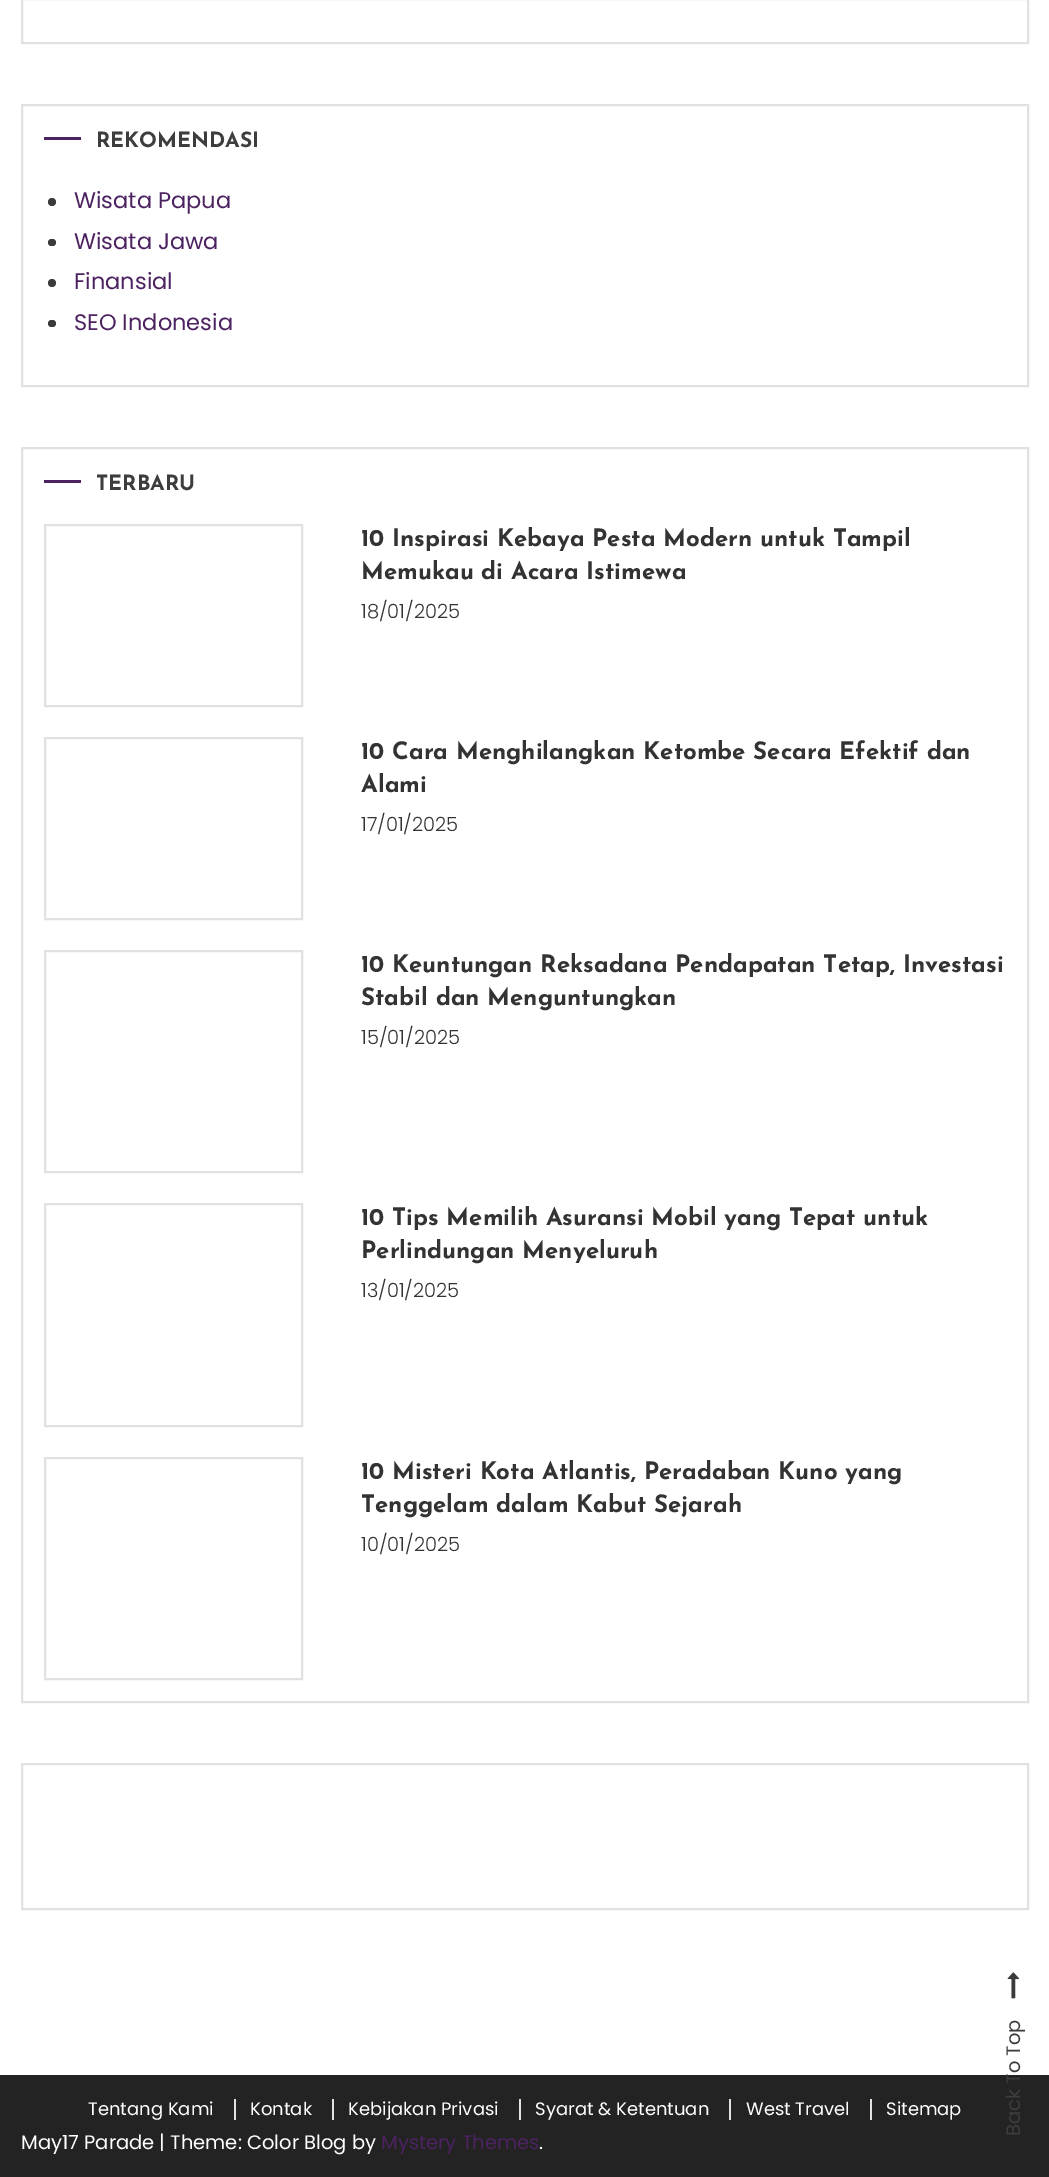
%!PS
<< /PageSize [1049 2177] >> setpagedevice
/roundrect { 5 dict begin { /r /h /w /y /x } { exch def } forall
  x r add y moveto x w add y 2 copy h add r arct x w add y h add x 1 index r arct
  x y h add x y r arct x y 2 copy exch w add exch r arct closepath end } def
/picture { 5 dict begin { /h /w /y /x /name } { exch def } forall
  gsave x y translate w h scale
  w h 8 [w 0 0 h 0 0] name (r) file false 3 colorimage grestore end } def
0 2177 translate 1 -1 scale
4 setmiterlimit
1 setgray
0 0 1049 2177 rectfill
0.882 setgray
2 setlinewidth
22 -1 1006 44 rectstroke
22 105 1006 281 rectstroke
0.302 0.133 0.38 setrgbcolor
44 137 37 3 rectfill
/JosefinSans-Bold [21 0 0 -21 0 0] selectfont
0.239 setgray
96 147 moveto (REKOMENDASI) show
0.231 setgray
newpath 52 202 4 0 360 arc closepath fill
/Poppins-Regular [22.5 0 0 -22.5 0 0] selectfont
0.302 0.133 0.38 setrgbcolor
74 208 moveto (Wisata Papua) show
0.231 setgray
48 239 8 7 3.5 roundrect fill
0.302 0.133 0.38 setrgbcolor
74 249 moveto (Wisata Jawa) show
0.231 setgray
newpath 52 283 4 0 360 arc closepath fill
0.302 0.133 0.38 setrgbcolor
74 289 moveto (Finansial) show
0.231 setgray
48 320 8 7 3.5 roundrect fill
0.302 0.133 0.38 setrgbcolor
74 330 moveto (SEO Indonesia) show
0.882 setgray
22 448 1006 1254 rectstroke
0.302 0.133 0.38 setrgbcolor
44 480 37 3 rectfill
/JosefinSans-Bold [21 0 0 -21 0 0] selectfont
0.239 setgray
96 490 moveto (TERBARU) show
0.882 setgray
45 525 257 181 rectstroke
/JosefinSans-Bold [24 0 0 -24 0 0] selectfont
0.2 setgray
361 546 moveto (10 Inspirasi Kebaya Pesta Modern untuk Tampil) show
361 579 moveto (Memukau di Acara Istimewa) show
/Poppins-Light [19.5 0 0 -19.5 0 0] selectfont
361 618 moveto (18/01/2025) show
0.882 setgray
45 738 257 181 rectstroke
/JosefinSans-Bold [24 0 0 -24 0 0] selectfont
0.2 setgray
361 759 moveto (10 Cara Menghilangkan Ketombe Secara Efektif dan) show
361 792 moveto (Alami) show
/Poppins-Light [19.5 0 0 -19.5 0 0] selectfont
361 831 moveto (17/01/2025) show
0.882 setgray
45 951 257 221 rectstroke
/JosefinSans-Bold [24 0 0 -24 0 0] selectfont
0.2 setgray
361 972 moveto (10 Keuntungan Reksadana Pendapatan Tetap, Investasi) show
361 1005 moveto (Stabil dan Menguntungkan) show
/Poppins-Light [19.5 0 0 -19.5 0 0] selectfont
361 1044 moveto (15/01/2025) show
0.882 setgray
45 1204 257 222 rectstroke
/JosefinSans-Bold [24 0 0 -24 0 0] selectfont
0.2 setgray
361 1225 moveto (10 Tips Memilih Asuransi Mobil yang Tepat untuk) show
361 1258 moveto (Perlindungan Menyeluruh) show
/Poppins-Light [19.5 0 0 -19.5 0 0] selectfont
361 1297 moveto (13/01/2025) show
0.882 setgray
45 1458 257 221 rectstroke
/JosefinSans-Bold [24 0 0 -24 0 0] selectfont
0.2 setgray
361 1479 moveto (10 Misteri Kota Atlantis, Peradaban Kuno yang) show
361 1512 moveto (Tenggelam dalam Kabut Sejarah) show
/Poppins-Light [19.5 0 0 -19.5 0 0] selectfont
361 1551 moveto (10/01/2025) show
0.882 setgray
22 1764 1006 145 rectstroke
0.137 setgray
0 2075 1049 102 rectfill
/Poppins-Regular [18 0 0 -18 0 0] selectfont
1 setgray
88 2115 moveto (Tentang Kami) show
0.882 setgray
234 2099 2 21 rectfill
1 setgray
250 2115 moveto (Kontak) show
0.882 setgray
332 2099 2 21 rectfill
1 setgray
348 2115 moveto (Kebijakan Privasi) show
0.882 setgray
519 2099 2 21 rectfill
1 setgray
535 2115 moveto (Syarat & Ketentuan) show
0.882 setgray
729 2099 2 21 rectfill
1 setgray
746 2115 moveto (West Travel) show
0.882 setgray
870 2099 2 21 rectfill
1 setgray
886 2115 moveto (Sitemap) show
/Poppins-Regular [19.5 0 0 -19.5 0 0] selectfont
21 2149 moveto (May17 Parade | Theme: Color Blog by) show
0.302 0.133 0.38 setrgbcolor
381 2149 moveto (Mystery Themes) show
1 setgray
539 2149 moveto (.) show
(img1.rgb) 1007 1972 13 27 picture
0.239 setgray
gsave 1020 2136 translate -90 rotate 0 0 moveto (Back To Top) show grestore
showpage
